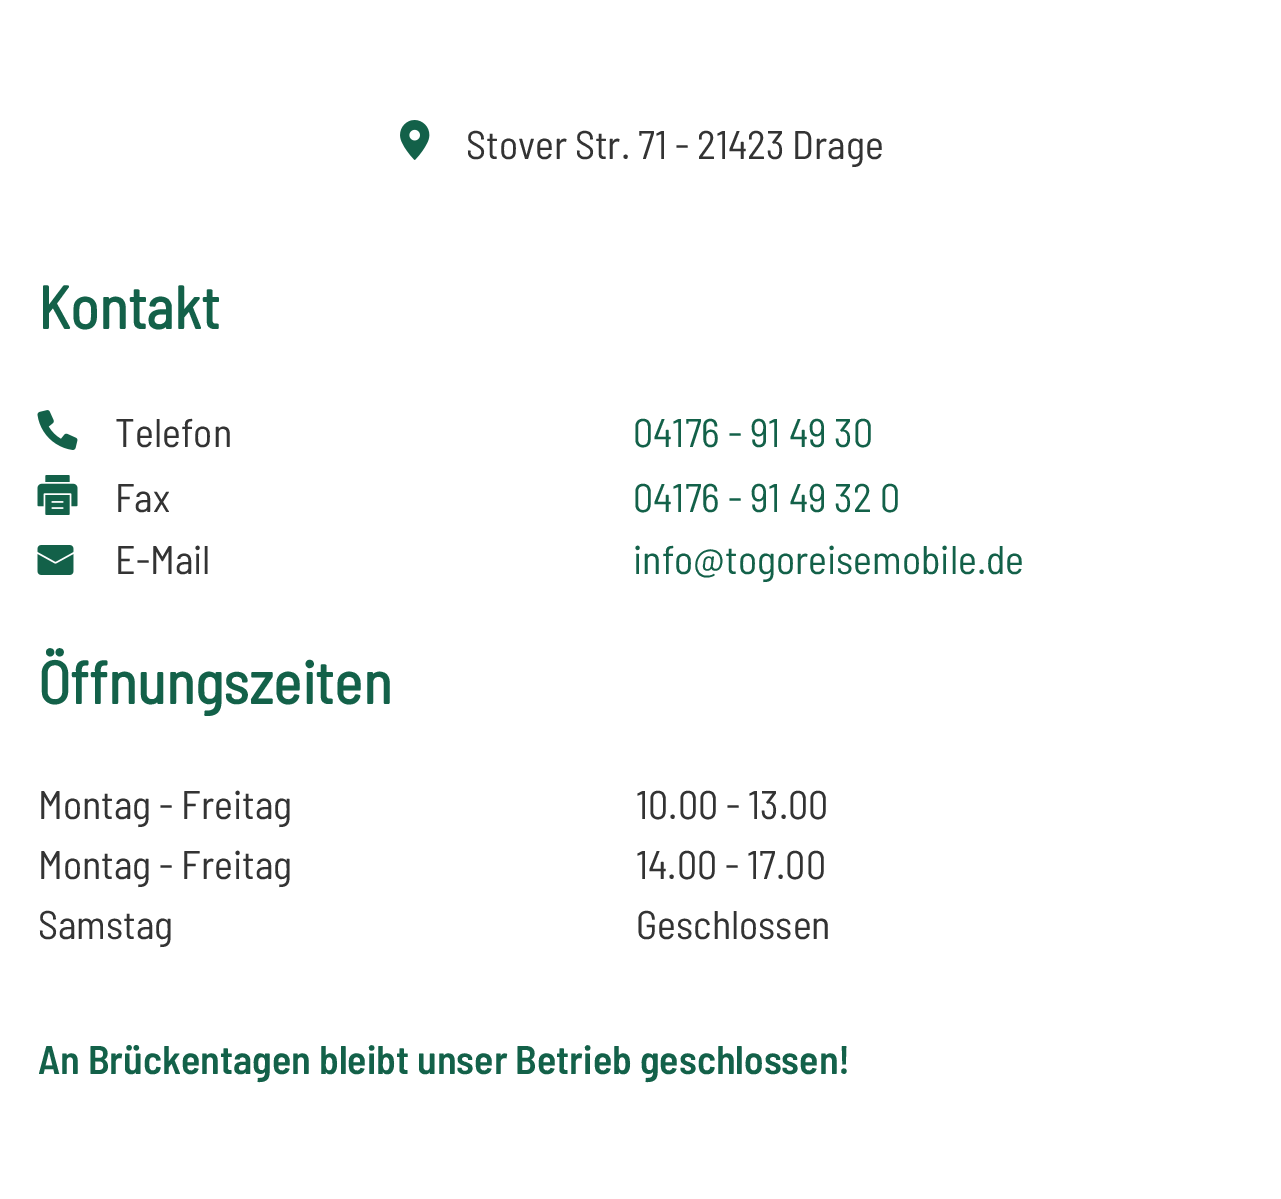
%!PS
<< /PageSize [1281 1199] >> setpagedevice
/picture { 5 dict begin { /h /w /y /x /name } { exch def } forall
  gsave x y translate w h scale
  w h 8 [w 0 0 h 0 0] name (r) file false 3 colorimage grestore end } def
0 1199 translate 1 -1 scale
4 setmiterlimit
1 setgray
0 0 1281 1199 rectfill
(img1.rgb) 400 120 30 40 picture
/BarlowSemiCondensed-Regular [40 0 0 -40 0 0] selectfont
0.2 setgray
466 159 moveto (Stover Str. 71 - 21423 Drage) show
/BarlowSemiCondensed-Bold [60 0 0 -60 0 0] selectfont
0.075 0.38 0.286 setrgbcolor
38 329 moveto (Kontakt) show
(img2.rgb) 37 410 41 40 picture
/BarlowSemiCondensed-Regular [40 0 0 -40 0 0] selectfont
0.2 setgray
115 447 moveto (Telefon) show
0.075 0.38 0.286 setrgbcolor
633 447 moveto (04176 - 91 49 30) show
(img3.rgb) 37 475 41 40 picture
0.2 setgray
115 512 moveto (Fax) show
0.075 0.38 0.286 setrgbcolor
633 512 moveto (04176 - 91 49 32 0) show
(img4.rgb) 37 545 37 30 picture
0.2 setgray
115 574 moveto (E-Mail) show
0.075 0.38 0.286 setrgbcolor
633 574 moveto (info@togoreisemobile.de) show
/BarlowSemiCondensed-Bold [60 0 0 -60 0 0] selectfont
38 704 moveto (Öffnungszeiten) show
/BarlowSemiCondensed-Regular [40 0 0 -40 0 0] selectfont
0.2 setgray
38 819 moveto (Montag - Freitag) show
636 819 moveto (10.00 - 13.00) show
38 879 moveto (Montag - Freitag) show
636 879 moveto (14.00 - 17.00) show
38 939 moveto (Samstag) show
636 939 moveto (Geschlossen) show
/BarlowSemiCondensed-SemiBold [40 0 0 -40 0 0] selectfont
0.075 0.38 0.286 setrgbcolor
38 1074 moveto (An Brückentagen bleibt unser Betrieb geschlossen!) show
showpage
